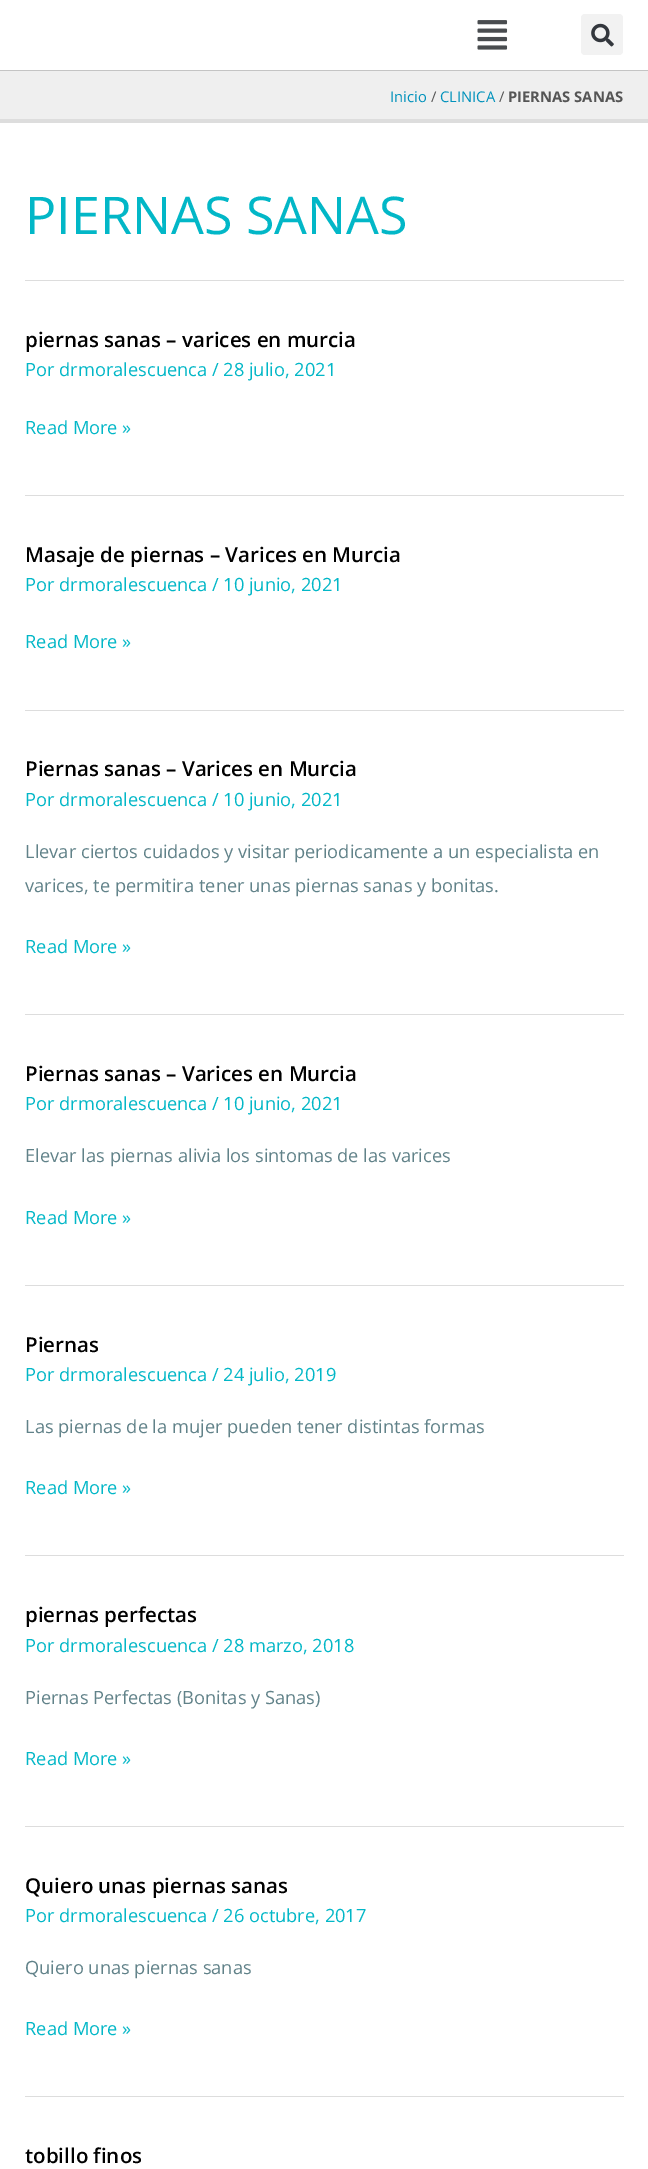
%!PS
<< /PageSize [648 2169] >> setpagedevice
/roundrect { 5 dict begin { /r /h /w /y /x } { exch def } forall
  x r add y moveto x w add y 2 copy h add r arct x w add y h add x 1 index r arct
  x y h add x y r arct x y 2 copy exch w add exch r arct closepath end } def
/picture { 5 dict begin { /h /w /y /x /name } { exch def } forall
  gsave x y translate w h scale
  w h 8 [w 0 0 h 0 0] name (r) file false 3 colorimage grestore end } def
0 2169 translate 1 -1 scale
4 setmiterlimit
1 setgray
0 0 648 2169 rectfill
0.769 setgray
0 70 648 1 rectfill
(img1.rgb) 477 20 31 30 picture
0.949 setgray
581 14 42 41 4 roundrect fill
(img2.rgb) 591 23 23 24 picture
0.937 setgray
0 71 648 48 rectfill
0.867 setgray
0 119 648 4 rectfill
/OpenSans-Regular [14.75 0 0 -14.75 0 0] selectfont
0.004 0.573 0.737 setrgbcolor
390 102 moveto (Inicio) show
0.333 setgray
431 102 moveto (/) show
0.004 0.573 0.737 setrgbcolor
440 102 moveto (CLINICA) show
0.333 setgray
499 102 moveto (/) show
/OpenSans-Bold [14.75 0 0 -14.75 0 0] selectfont
508 102 moveto (PIERNAS SANAS) show
0.867 setgray
25 280 599 1 rectfill
/OpenSans-Regular [52 0 0 -52 0 0] selectfont
0.008 0.718 0.78 setrgbcolor
25 234 moveto (PIERNAS SANAS) show
0.867 setgray
25 495 599 1 rectfill
/OpenSans-SemiBold [20.5 0 0 -20.5 0 0] selectfont
0 setgray
25 347 moveto (piernas sanas – varices en murcia) show
/OpenSans-Regular [18.25 0 0 -18.25 0 0] selectfont
0.008 0.718 0.78 setrgbcolor
25 376 moveto (Por drmoralescuenca / 28 julio, 2021) show
25 434 moveto (Read More ») show
0.867 setgray
25 710 599 1 rectfill
/OpenSans-SemiBold [20.5 0 0 -20.5 0 0] selectfont
0 setgray
25 562 moveto (Masaje de piernas – Varices en Murcia) show
/OpenSans-Regular [18.25 0 0 -18.25 0 0] selectfont
0.008 0.718 0.78 setrgbcolor
25 591 moveto (Por drmoralescuenca / 10 junio, 2021) show
25 648 moveto (Read More ») show
0.867 setgray
25 1014 599 1 rectfill
/OpenSans-SemiBold [20.5 0 0 -20.5 0 0] selectfont
0 setgray
25 776 moveto (Piernas sanas – Varices en Murcia) show
/OpenSans-Regular [18.25 0 0 -18.25 0 0] selectfont
0.008 0.718 0.78 setrgbcolor
25 806 moveto (Por drmoralescuenca / 10 junio, 2021) show
0.38 0.51 0.537 setrgbcolor
25 858 moveto (Llevar ciertos cuidados y visitar periodicamente a un especialista en) show
25 892 moveto (varices, te permitira tener unas piernas sanas y bonitas.) show
0.008 0.718 0.78 setrgbcolor
25 953 moveto (Read More ») show
0.867 setgray
25 1285 599 1 rectfill
/OpenSans-SemiBold [20.5 0 0 -20.5 0 0] selectfont
0 setgray
25 1081 moveto (Piernas sanas – Varices en Murcia) show
/OpenSans-Regular [18.25 0 0 -18.25 0 0] selectfont
0.008 0.718 0.78 setrgbcolor
25 1110 moveto (Por drmoralescuenca / 10 junio, 2021) show
0.38 0.51 0.537 setrgbcolor
25 1162 moveto (Elevar las piernas alivia los sintomas de las varices) show
0.008 0.718 0.78 setrgbcolor
25 1224 moveto (Read More ») show
0.867 setgray
25 1555 599 1 rectfill
/OpenSans-SemiBold [20.5 0 0 -20.5 0 0] selectfont
0 setgray
25 1352 moveto (Piernas) show
/OpenSans-Regular [18.25 0 0 -18.25 0 0] selectfont
0.008 0.718 0.78 setrgbcolor
25 1381 moveto (Por drmoralescuenca / 24 julio, 2019) show
0.38 0.51 0.537 setrgbcolor
25 1433 moveto (Las piernas de la mujer pueden tener distintas formas) show
0.008 0.718 0.78 setrgbcolor
25 1494 moveto (Read More ») show
0.867 setgray
25 1826 599 1 rectfill
/OpenSans-SemiBold [20.5 0 0 -20.5 0 0] selectfont
0 setgray
25 1622 moveto (piernas perfectas) show
/OpenSans-Regular [18.25 0 0 -18.25 0 0] selectfont
0.008 0.718 0.78 setrgbcolor
25 1652 moveto (Por drmoralescuenca / 28 marzo, 2018) show
0.38 0.51 0.537 setrgbcolor
25 1704 moveto (Piernas Perfectas \(Bonitas y Sanas\)) show
0.008 0.718 0.78 setrgbcolor
25 1765 moveto (Read More ») show
0.867 setgray
25 2096 599 1 rectfill
/OpenSans-SemiBold [20.5 0 0 -20.5 0 0] selectfont
0 setgray
25 1893 moveto (Quiero unas piernas sanas) show
/OpenSans-Regular [18.25 0 0 -18.25 0 0] selectfont
0.008 0.718 0.78 setrgbcolor
25 1922 moveto (Por drmoralescuenca / 26 octubre, 2017) show
0.38 0.51 0.537 setrgbcolor
25 1974 moveto (Quiero unas piernas sanas) show
0.008 0.718 0.78 setrgbcolor
25 2035 moveto (Read More ») show
/OpenSans-SemiBold [20.5 0 0 -20.5 0 0] selectfont
0 setgray
25 2163 moveto (tobillo finos) show
showpage
